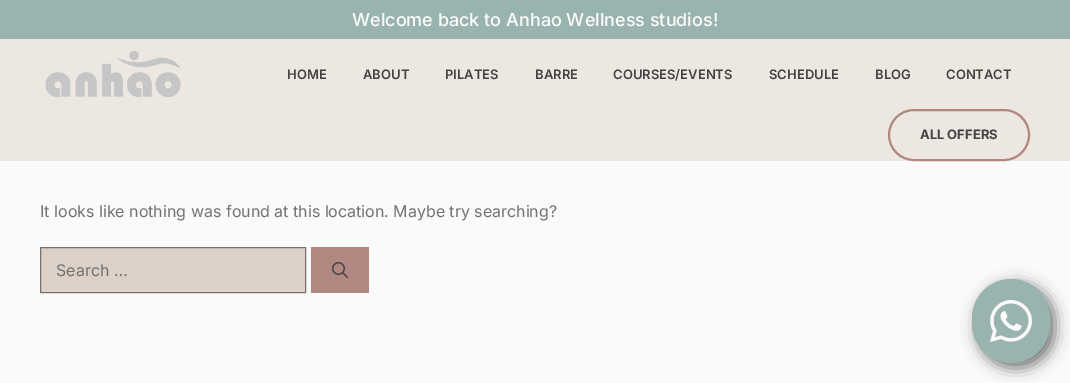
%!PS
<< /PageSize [1070 383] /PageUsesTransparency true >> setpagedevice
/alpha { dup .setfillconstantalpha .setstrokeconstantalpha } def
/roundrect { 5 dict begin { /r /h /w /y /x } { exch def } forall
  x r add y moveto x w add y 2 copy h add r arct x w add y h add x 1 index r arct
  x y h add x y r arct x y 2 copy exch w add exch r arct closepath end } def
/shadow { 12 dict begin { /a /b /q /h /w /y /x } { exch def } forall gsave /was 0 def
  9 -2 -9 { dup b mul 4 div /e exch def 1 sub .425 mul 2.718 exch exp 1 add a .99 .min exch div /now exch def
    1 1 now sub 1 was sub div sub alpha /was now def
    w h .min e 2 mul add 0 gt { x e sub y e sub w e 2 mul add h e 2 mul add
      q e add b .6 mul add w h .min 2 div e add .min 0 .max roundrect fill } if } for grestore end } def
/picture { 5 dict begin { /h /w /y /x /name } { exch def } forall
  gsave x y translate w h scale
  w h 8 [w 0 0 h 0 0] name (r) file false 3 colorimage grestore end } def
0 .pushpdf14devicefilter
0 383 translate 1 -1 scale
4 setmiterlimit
0.98 setgray
0 0 1070 383 rectfill
0.6 0.706 0.682 setrgbcolor
0 0 1070 39 rectfill
/Inter-Medium [18 0 0 -18 0 0] selectfont
0.98 setgray
352 26 moveto (Welcome back to Anhao Wellness studios!) show
0.929 0.906 0.882 setrgbcolor
0 39 1070 122 rectfill
(img1.rgb) 45 51 136 47 picture
/Inter-SemiBold [13 0 0 -13 0 0] selectfont
0.263 setgray
287 79 moveto (HOME) show
363 79 moveto (ABOUT) show
445 79 moveto (PILATES) show
535 79 moveto (BARRE) show
613 79 moveto (COURSES/EVENTS) show
769 79 moveto (SCHEDULE) show
875 79 moveto (BLOG) show
946 79 moveto (CONTACT) show
0.694 0.529 0.506 setrgbcolor
2 setlinewidth
889 110 140 50 25 roundrect stroke
/Inter-Bold [13 0 0 -13 0 0] selectfont
0.263 setgray
920 139 moveto (ALL OFFERS) show
/Inter-Regular [16 0 0 -16 0 0] selectfont
0.447 0.447 0.443 setrgbcolor
40 217 moveto (It looks like nothing was found at this location. Maybe try searching?) show
0.867 0.82 0.78 setrgbcolor
newpath 40.5 247.5 moveto 305.5 247.5 lineto 305.5 292.5 lineto 40.5 292.5 lineto closepath gsave fill grestore
0.447 0.447 0.443 setrgbcolor
1 setlinewidth
stroke
56 276 moveto (Search …) show
0.694 0.529 0.506 setrgbcolor
311 247 58 46 rectfill
(img2.rgb) 332 262 16 16 picture
0.447 0.447 0.443 setrgbcolor
977 284 78 84 39 7.5 1 shadow
0.6 0.706 0.682 setrgbcolor
972 279 78 84 39 roundrect fill
(img3.rgb) 990 300 42 42 picture
.poppdf14devicefilter showpage
